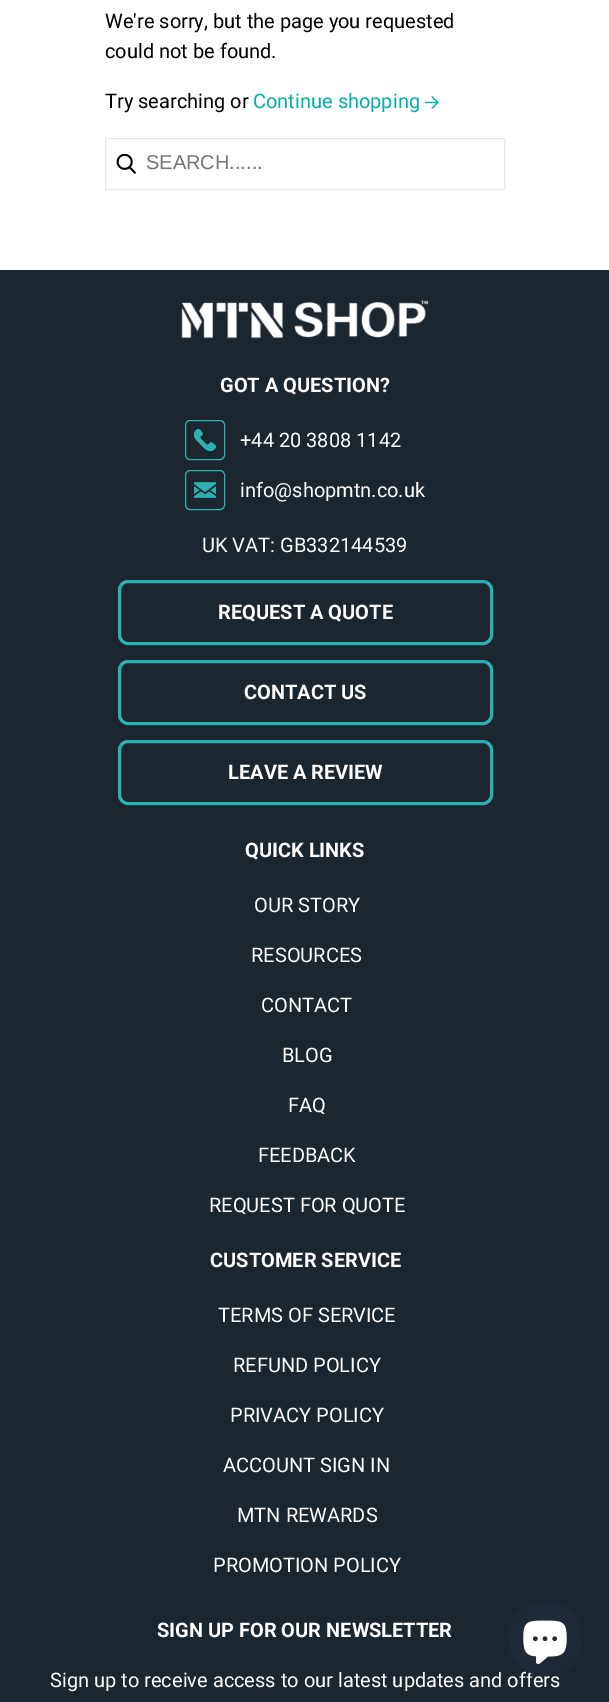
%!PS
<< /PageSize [609 1702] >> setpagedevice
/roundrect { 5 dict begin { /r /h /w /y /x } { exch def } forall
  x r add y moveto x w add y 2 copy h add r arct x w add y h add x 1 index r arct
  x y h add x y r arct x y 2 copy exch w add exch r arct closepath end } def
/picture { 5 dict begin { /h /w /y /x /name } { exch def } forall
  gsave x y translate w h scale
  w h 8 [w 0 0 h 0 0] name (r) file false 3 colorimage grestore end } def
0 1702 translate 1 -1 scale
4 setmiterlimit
1 setgray
0 0 609 1702 rectfill
/Roboto-Regular [20 0 0 -20 0 0] selectfont
0 setgray
105 28 moveto (We're sorry, but the page you requested) show
105 58 moveto (could not be found.) show
105 108 moveto (Try searching or) show
0.012 0.686 0.663 setrgbcolor
253 108 moveto (Continue shopping) show
(img1.rgb) 425 96 14 13 picture
0.906 setgray
105.5 138.5 399 51 rectstroke
(img2.rgb) 116 154 20 20 picture
/LiberationSans-Regular [20 0 0 -20 0 0] selectfont
0.459 setgray
146 169 moveto (SEARCH......) show
0.11 0.149 0.184 setrgbcolor
0 270 609 1432 rectfill
(img3.rgb) 181 300 248 39 picture
/Roboto-Bold [20 0 0 -20 0 0] selectfont
1 setgray
220 392 moveto (GOT A QUESTION?) show
0.169 0.698 0.69 setrgbcolor
185.5 420.5 39 39 4.5 roundrect stroke
(img4.rgb) 194 429 22 22 picture
/Roboto-Regular [20 0 0 -20 0 0] selectfont
1 setgray
240 447 moveto (+44 20 3808 1142) show
0.169 0.698 0.69 setrgbcolor
185.5 470.5 39 39 4.5 roundrect stroke
(img5.rgb) 194 482 22 16 picture
1 setgray
240 497 moveto (info@shopmtn.co.uk) show
202 552 moveto (UK VAT: GB332144539) show
0.169 0.698 0.69 setrgbcolor
3 setlinewidth
119.5 581.5 372 62 8.5 roundrect stroke
/Roboto-Bold [20 0 0 -20 0 0] selectfont
1 setgray
218 619 moveto (REQUEST A QUOTE) show
0.169 0.698 0.69 setrgbcolor
119.5 661.5 372 62 8.5 roundrect stroke
1 setgray
244 699 moveto (CONTACT US) show
0.169 0.698 0.69 setrgbcolor
119.5 741.5 372 62 8.5 roundrect stroke
1 setgray
228 779 moveto (LEAVE A REVIEW) show
245 857 moveto (QUICK LINKS) show
/Roboto-Regular [20 0 0 -20 0 0] selectfont
254 912 moveto (OUR STORY) show
251 962 moveto (RESOURCES) show
261 1012 moveto (CONTACT) show
282 1062 moveto (BLOG) show
288 1112 moveto (FAQ) show
258 1162 moveto (FEEDBACK) show
209 1212 moveto (REQUEST FOR QUOTE) show
/Roboto-Bold [20 0 0 -20 0 0] selectfont
210 1267 moveto (CUSTOMER SERVICE) show
/Roboto-Regular [20 0 0 -20 0 0] selectfont
218 1322 moveto (TERMS OF SERVICE) show
233 1372 moveto (REFUND POLICY) show
230 1422 moveto (PRIVACY POLICY) show
223 1472 moveto (ACCOUNT SIGN IN) show
237 1522 moveto (MTN REWARDS) show
213 1572 moveto (PROMOTION POLICY) show
/Roboto-Bold [20 0 0 -20 0 0] selectfont
157 1637 moveto (SIGN UP FOR OUR NEWSLETTER) show
/Roboto-Regular [20 0 0 -20 0 0] selectfont
50 1687 moveto (Sign up to receive access to our latest updates and offers) show
0.125 0.165 0.212 setrgbcolor
newpath 545.5 1638.5 37.5 0 360 arc closepath fill
(img6.rgb) 523 1620 44 45 picture
showpage
